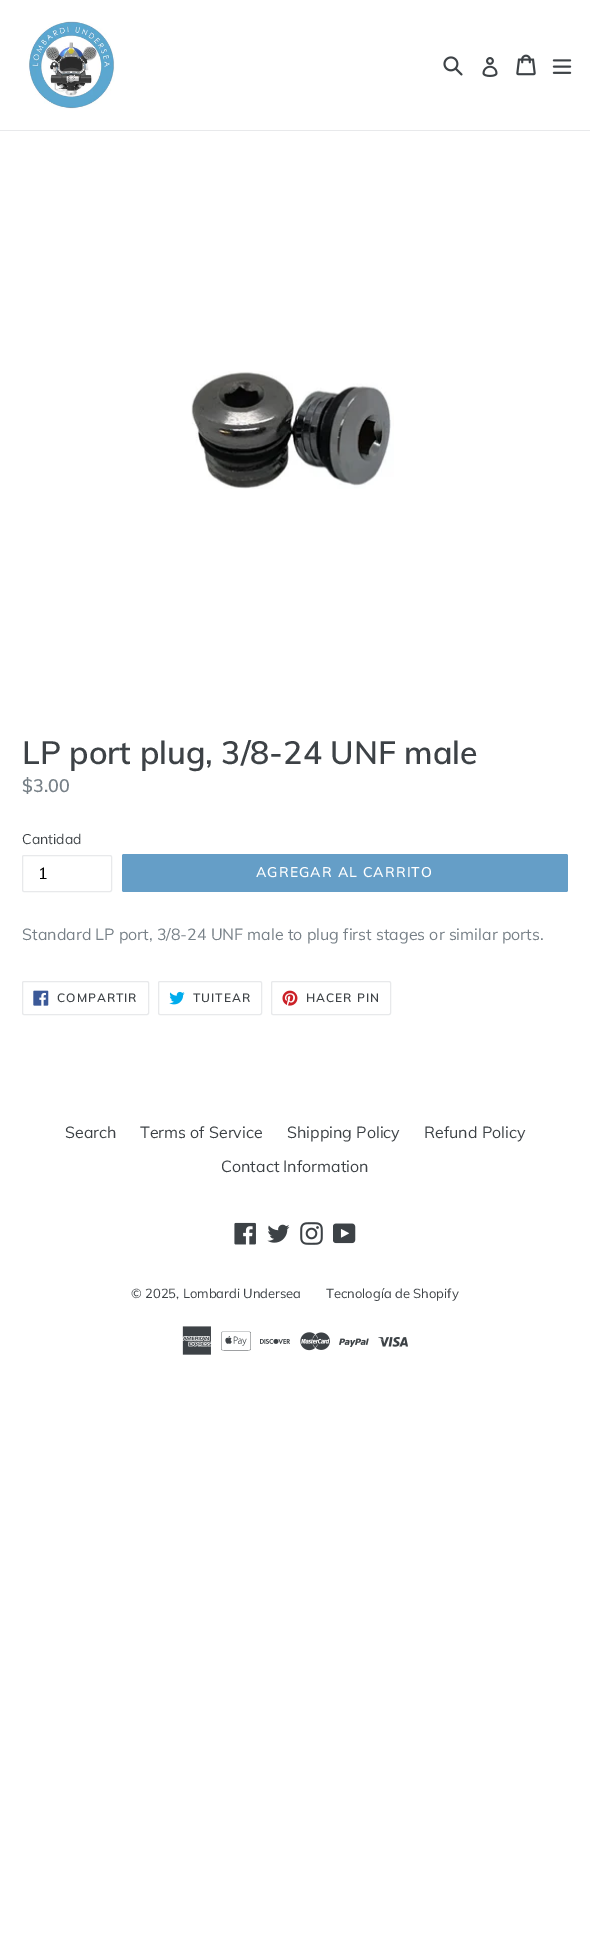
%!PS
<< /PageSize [590 1949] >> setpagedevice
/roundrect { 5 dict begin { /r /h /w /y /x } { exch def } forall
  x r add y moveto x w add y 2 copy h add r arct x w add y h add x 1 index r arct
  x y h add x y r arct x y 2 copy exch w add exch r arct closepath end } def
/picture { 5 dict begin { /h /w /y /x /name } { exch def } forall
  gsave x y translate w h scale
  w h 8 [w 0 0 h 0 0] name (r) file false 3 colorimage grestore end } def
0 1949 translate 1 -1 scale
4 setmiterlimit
1 setgray
0 0 590 1949 rectfill
0.91 0.914 0.922 setrgbcolor
0 130 590 1 rectfill
(img1.rgb) 28 21 87 88 picture
(img2.rgb) 443 56 20 20 picture
(img3.rgb) 482 57 16 20 picture
(img4.rgb) 516 54 20 22 picture
(img5.rgb) 552 59 20 15 picture
(img6.rgb) 191 371 203 118 picture
/Muli-SemiBold [32 0 0 -32 0 0] selectfont
0.239 0.259 0.275 setrgbcolor
22 764 moveto (LP port plug, 3/8-24 UNF male) show
/Muli-SemiBold [18 0 0 -18 0 0] selectfont
0.471 0.506 0.533 setrgbcolor
22 792 moveto ($3.00) show
/Muli-Regular [14 0 0 -14 0 0] selectfont
0.239 0.259 0.275 setrgbcolor
22 844 moveto (Cantidad) show
0.91 0.914 0.922 setrgbcolor
22.5 855.5 89 36 1.5 roundrect stroke
/Muli-Regular [16 0 0 -16 0 0] selectfont
0 setgray
38 879 moveto (1) show
0.396 0.62 0.78 setrgbcolor
122 854 446 38 2 roundrect fill
/Muli-SemiBold [14 0 0 -14 0 0] selectfont
1 setgray
256 877 moveto 1.1 0 (AGREGAR AL CARRITO) ashow
/Muli-Regular [16 0 0 -16 0 0] selectfont
0.471 0.506 0.533 setrgbcolor
22 940 moveto (Standard LP port, 3/8-24 UNF male to plug first stages or similar ports.) show
0.91 0.914 0.922 setrgbcolor
22.5 981.5 126 33 1.5 roundrect stroke
(img7.rgb) 33 990 16 16 picture
/Muli-SemiBold [12 0 0 -12 0 0] selectfont
0.239 0.259 0.275 setrgbcolor
57 1002 moveto 1 0 (COMPARTIR) ashow
0.91 0.914 0.922 setrgbcolor
158.5 981.5 103 33 1.5 roundrect stroke
(img8.rgb) 169 991 16 14 picture
0.239 0.259 0.275 setrgbcolor
193 1002 moveto 1 0 (TUITEAR) ashow
0.91 0.914 0.922 setrgbcolor
271.5 981.5 119 33 1.5 roundrect stroke
(img9.rgb) 282 990 16 16 picture
0.239 0.259 0.275 setrgbcolor
306 1002 moveto 1 0 (HACER PIN) ashow
/Muli-Regular [16 0 0 -16 0 0] selectfont
65 1138 moveto (Search) show
140 1138 moveto (Terms of Service) show
287 1138 moveto (Shipping Policy) show
424 1138 moveto (Refund Policy) show
221 1172 moveto (Contact Information) show
(img10.rgb) 234 1222 22 23 picture
(img11.rgb) 267 1224 23 19 picture
(img12.rgb) 300 1222 23 23 picture
(img13.rgb) 333 1223 23 21 picture
/Muli-Regular [13 0 0 -13 0 0] selectfont
131 1298 moveto (© 2025, Lombardi Undersea) show
326 1298 moveto (Tecnología de Shopify) show
(img14.rgb) 182 1326 30 29 picture
(img15.rgb) 221 1331 30 20 picture
(img16.rgb) 260 1338 30 6 picture
(img17.rgb) 300 1332 30 19 picture
(img18.rgb) 339 1338 30 9 picture
(img19.rgb) 378 1337 30 10 picture
showpage
